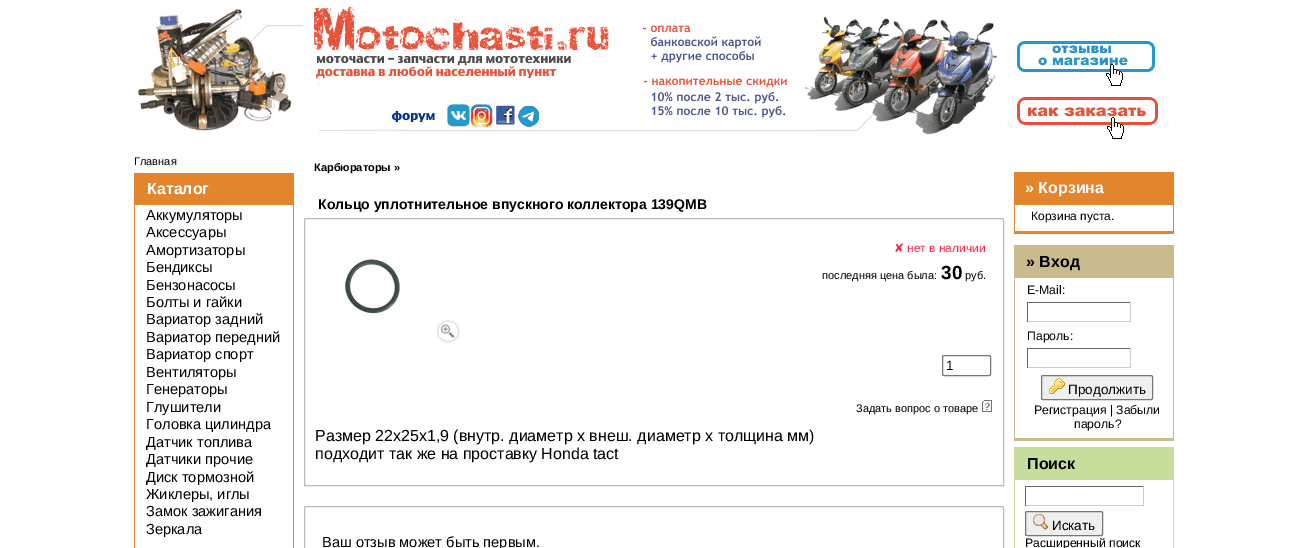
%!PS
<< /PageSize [1308 548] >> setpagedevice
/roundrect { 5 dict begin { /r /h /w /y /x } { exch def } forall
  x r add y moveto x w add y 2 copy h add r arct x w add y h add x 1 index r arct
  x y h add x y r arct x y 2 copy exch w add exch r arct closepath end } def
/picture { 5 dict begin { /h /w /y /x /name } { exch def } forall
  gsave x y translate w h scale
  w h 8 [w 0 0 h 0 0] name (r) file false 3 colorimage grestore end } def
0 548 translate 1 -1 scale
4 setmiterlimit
1 setgray
0 0 1308 548 rectfill
(img1.rgb) 137 6 1021 133 picture
/LiberationSans-Regular [11 0 0 -11 0 0] selectfont
0 setgray
134 165 moveto (Главная) show
0.89 0.522 0.176 setrgbcolor
134 173 160 32 rectfill
/LiberationSans-Bold [16 0 0 -16 0 0] selectfont
1 setgray
147 194 moveto (Каталог) show
0.89 0.522 0.176 setrgbcolor
293 205 1 343 rectfill
134 205 1 343 rectfill
/LiberationSans-Regular [14.6 0 0 -14.6 0 0] selectfont
0 setgray
146 220 moveto (Аккумуляторы) show
146 237 moveto (Аксессуары) show
146 255 moveto (Амортизаторы) show
146 272 moveto (Бендиксы) show
146 290 moveto (Бензонасосы) show
146 307 moveto (Болты и гайки) show
146 324 moveto (Вариатор задний) show
146 342 moveto (Вариатор передний) show
146 359 moveto (Вариатор спорт) show
146 377 moveto (Вентиляторы) show
146 394 moveto (Генераторы) show
146 412 moveto (Глушители) show
146 429 moveto (Головка цилиндра) show
146 447 moveto (Датчик топлива) show
146 464 moveto (Датчики прочие) show
146 482 moveto (Диск тормозной) show
146 499 moveto (Жиклеры, иглы) show
146 516 moveto (Замок зажигания) show
146 534 moveto (Зеркала) show
/LiberationSans-Bold [11 0 0 -11 0 0] selectfont
314 171 moveto (Карбюраторы ») show
/LiberationSans-Bold [14 0 0 -14 0 0] selectfont
318 209 moveto (Кольцо уплотнительное впускного коллектора 139QMB) show
0.733 setgray
newpath 306 218.5 moveto 1002 218.5 lineto 1003 218.5 1003.5 219 1003.5 220 curveto 1003.5 485.5 lineto 304.5 485.5 lineto 304.5 220 lineto 304.5 219 305 218.5 306 218.5 curveto closepath stroke
(img2.rgb) 344 255 57 63 picture
(img3.rgb) 436 319 24 25 picture
/DejaVuSans-Regular [12 0 0 -12 0 0] selectfont
0.988 0.157 0.278 setrgbcolor
894 252 moveto (✘) show
/LiberationSans-Regular [12 0 0 -12 0 0] selectfont
907 252 moveto (нет в наличии) show
/LiberationSans-Regular [11 0 0 -11 0 0] selectfont
0 setgray
822 279 moveto (последняя цена была:) show
/LiberationSans-Bold [19 0 0 -19 0 0] selectfont
941 279 moveto (30) show
/LiberationSans-Regular [11 0 0 -11 0 0] selectfont
965 279 moveto (руб.) show
0.463 setgray
942.5 355.5 48 20 1.5 roundrect stroke
/LiberationSans-Regular [13.5 0 0 -13.5 0 0] selectfont
0 setgray
946 370 moveto (1) show
/LiberationSans-Regular [11 0 0 -11 0 0] selectfont
856 412 moveto (Задать вопрос о товаре) show
(img4.rgb) 982 400 10 12 picture
/LiberationSans-Regular [16 0 0 -16 0 0] selectfont
315 441 moveto (Размер 22х25х1,9 \(внутр. диаметр х внеш. диаметр х толщина мм\)) show
315 459 moveto (подходит так же на проставку Honda tact) show
0.733 setgray
newpath 306 506.5 moveto 1002 506.5 lineto 1003 506.5 1003.5 507 1003.5 508 curveto 1003.5 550.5 lineto 304.5 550.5 lineto 304.5 508 lineto 304.5 507 305 506.5 306 506.5 curveto closepath stroke
/LiberationSans-Regular [14.6 0 0 -14.6 0 0] selectfont
0 setgray
322 547 moveto (Ваш отзыв может быть первым.) show
0.89 0.522 0.176 setrgbcolor
1014 172 160 33 rectfill
/LiberationSans-Bold [16 0 0 -16 0 0] selectfont
1 setgray
1025 193 moveto (» Корзина) show
0.89 0.522 0.176 setrgbcolor
1173 205 1 29 rectfill
1014 231 160 3 rectfill
1014 205 1 29 rectfill
/LiberationSans-Regular [12 0 0 -12 0 0] selectfont
0 setgray
1031 220 moveto (Корзина пуста.) show
0.788 0.733 0.565 setrgbcolor
1014 245 160 33 rectfill
/LiberationSans-Bold [16 0 0 -16 0 0] selectfont
0 setgray
1026 267 moveto (» Вход) show
0.788 0.733 0.565 setrgbcolor
1173 278 1 163 rectfill
1014 438 160 3 rectfill
1014 278 1 163 rectfill
/LiberationSans-Regular [12.25 0 0 -12.25 0 0] selectfont
0 setgray
1027 294 moveto (E-Mail:) show
0.4 setgray
1027 302 104 1 rectfill
0.8 setgray
1130 302 1 20 rectfill
1027 321 104 1 rectfill
0.4 setgray
1027 302 1 20 rectfill
0 setgray
1027 340 moveto (Пароль:) show
0.4 setgray
1027 348 104 1 rectfill
0.8 setgray
1130 348 1 20 rectfill
1027 367 104 1 rectfill
0.4 setgray
1027 348 1 20 rectfill
0.937 setgray
1041.5 375.5 111 24 1.5 roundrect gsave fill grestore
0.463 setgray
stroke
(img5.rgb) 1049 378 16 16 picture
/LiberationSans-Regular [13.5 0 0 -13.5 0 0] selectfont
0 setgray
1068 394 moveto (Продолжить) show
/LiberationSans-Regular [12.25 0 0 -12.25 0 0] selectfont
1034 414 moveto (Регистрация | Забыли) show
1074 428 moveto (пароль?) show
0.78 0.867 0.608 setrgbcolor
1014 447 160 33 rectfill
/LiberationSans-Bold [16 0 0 -16 0 0] selectfont
0 setgray
1027 469 moveto (Поиск) show
0.78 0.867 0.608 setrgbcolor
1173 480 1 68 rectfill
1014 480 1 68 rectfill
0.4 setgray
1025 486 119 1 rectfill
0.8 setgray
1143 486 1 20 rectfill
1025 505 119 1 rectfill
0.4 setgray
1025 486 1 20 rectfill
0.937 setgray
1025.5 511.5 77 24 1.5 roundrect gsave fill grestore
0.463 setgray
stroke
(img6.rgb) 1033 514 16 16 picture
/LiberationSans-Regular [13.5 0 0 -13.5 0 0] selectfont
0 setgray
1052 530 moveto (Искать) show
/LiberationSans-Regular [12.25 0 0 -12.25 0 0] selectfont
1025 547 moveto (Расширенный поиск) show
showpage
